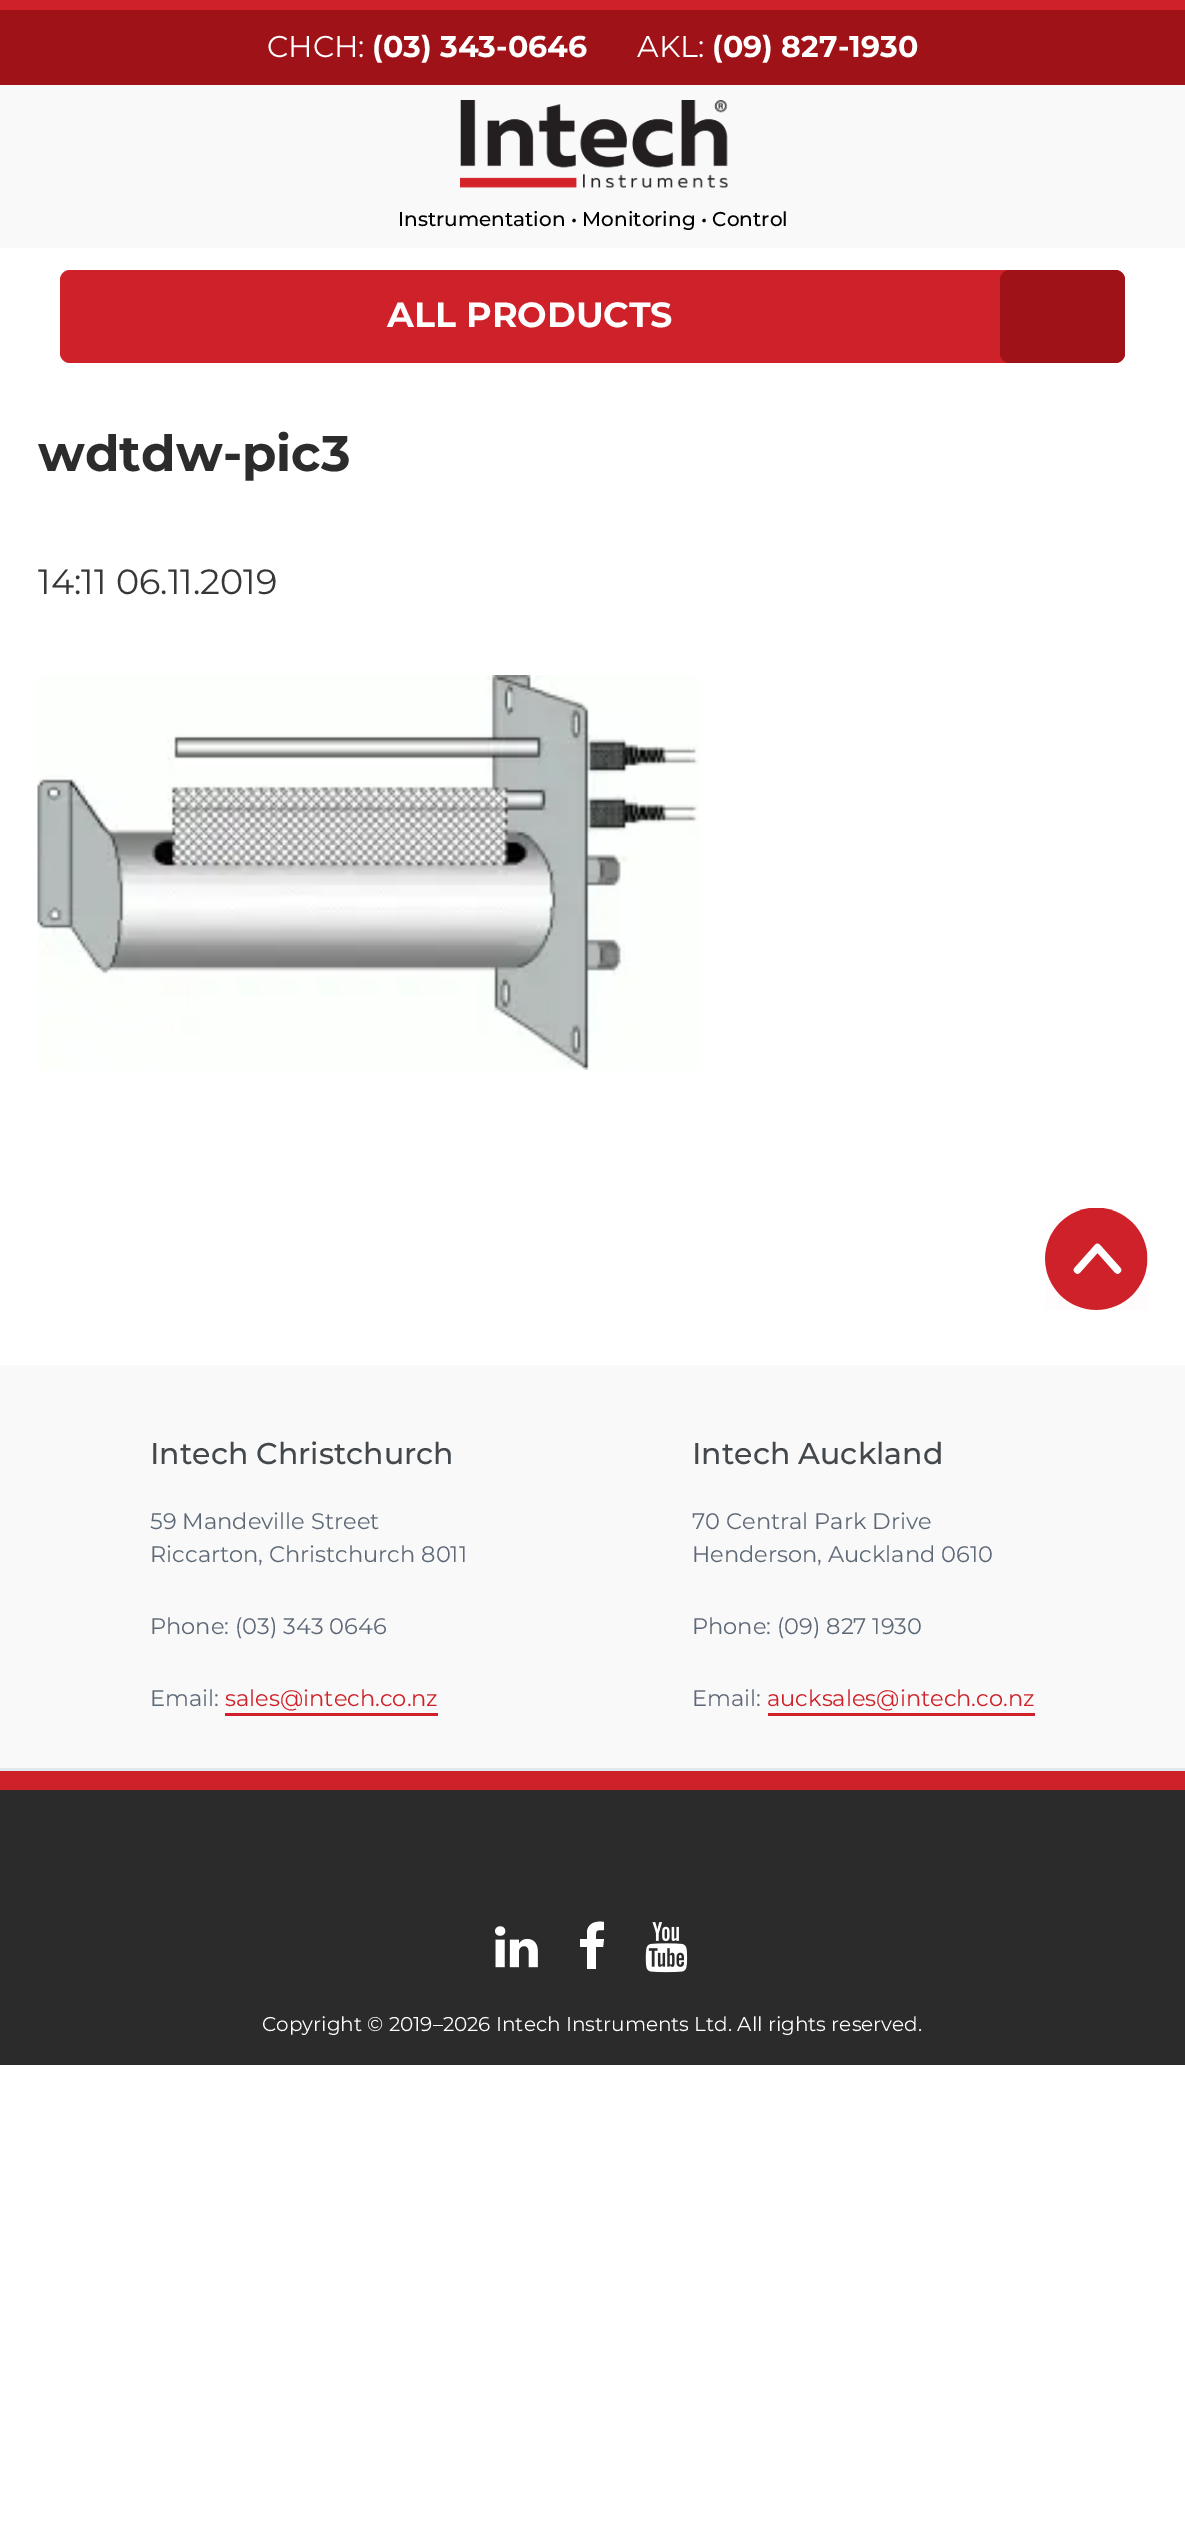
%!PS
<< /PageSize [1185 2523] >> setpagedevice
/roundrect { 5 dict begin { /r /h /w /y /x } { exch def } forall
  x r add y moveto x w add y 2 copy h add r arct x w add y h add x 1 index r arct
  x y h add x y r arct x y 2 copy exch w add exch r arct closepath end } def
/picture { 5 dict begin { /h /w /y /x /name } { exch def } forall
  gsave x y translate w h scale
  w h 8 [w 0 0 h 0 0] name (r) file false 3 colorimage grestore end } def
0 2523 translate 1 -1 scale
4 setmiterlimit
1 setgray
0 0 1185 2523 rectfill
0.624 0.071 0.094 setrgbcolor
0 10 1185 75 rectfill
0.812 0.129 0.161 setrgbcolor
0 0 1185 10 rectfill
0.976 setgray
0 85 1185 163 rectfill
/Montserrat-Regular [30 0 0 -30 0 0] selectfont
1 setgray
267 57 moveto (CHCH:) show
/Montserrat-Bold [30 0 0 -30 0 0] selectfont
372 57 moveto (\(03\) 343-0646) show
/Montserrat-Regular [30 0 0 -30 0 0] selectfont
637 57 moveto (AKL:) show
/Montserrat-Bold [30 0 0 -30 0 0] selectfont
712 57 moveto (\(09\) 827-1930) show
(img1.rgb) 460 100 268 88 picture
/Montserrat-Medium [20 0 0 -20 0 0] selectfont
0 setgray
398 226 moveto (Instrumentation • Monitoring • Control) show
0.812 0.129 0.161 setrgbcolor
60 270 1065 93 10 roundrect fill
/Montserrat-Bold [35 0 0 -35 0 0] selectfont
1 setgray
387 327 moveto (ALL PRODUCTS) show
0.624 0.071 0.094 setrgbcolor
1000 270 125 93 10 roundrect fill
/Montserrat-Bold [50 0 0 -50 0 0] selectfont
0.173 setgray
38 471 moveto (wdtdw-pic3) show
/Montserrat-Regular [35 0 0 -35 0 0] selectfont
0.216 0.216 0.22 setrgbcolor
38 594 moveto (14:11 06.11.2019) show
(img2.rgb) 37 675 662 395 picture
0.976 setgray
0 1365 1185 403 rectfill
0.882 0.91 0.933 setrgbcolor
0 1768 1185 3 rectfill
(img3.rgb) 1045 1208 103 102 picture
/Montserrat-Medium [30 0 0 -30 0 0] selectfont
0.263 0.282 0.302 setrgbcolor
150 1464 moveto (Intech Christchurch) show
/Montserrat-Regular [22.5 0 0 -22.5 0 0] selectfont
0.369 0.412 0.467 setrgbcolor
150 1529 moveto (59 Mandeville Street) show
150 1562 moveto (Riccarton, Christchurch 8011) show
150 1634 moveto (Phone: \(03\) 343 0646) show
150 1706 moveto (Email:) show
0.812 0.129 0.161 setrgbcolor
225 1706 moveto (sales@intech.co.nz) show
225 1713 213 3 rectfill
/Montserrat-Medium [30 0 0 -30 0 0] selectfont
0.263 0.282 0.302 setrgbcolor
692 1464 moveto (Intech Auckland) show
/Montserrat-Regular [22.5 0 0 -22.5 0 0] selectfont
0.369 0.412 0.467 setrgbcolor
692 1529 moveto (70 Central Park Drive) show
692 1562 moveto (Henderson, Auckland 0610) show
692 1634 moveto (Phone: \(09\) 827 1930) show
692 1706 moveto (Email:) show
0.812 0.129 0.161 setrgbcolor
767 1706 moveto (aucksales@intech.co.nz) show
768 1713 267 3 rectfill
0.169 setgray
0 1790 1185 275 rectfill
0.812 0.129 0.161 setrgbcolor
0 1771 1185 19 rectfill
(img4.rgb) 495 1926 43 42 picture
1 setgray
newpath 604 1922 moveto 604 1930 lineto 595 1930 596 1930 596 1939 curveto 604 1939 lineto 603 1947 lineto 596 1947 lineto 596 1969 lineto 587 1969 lineto 587 1947 lineto 580 1947 lineto 580 1939 lineto 587 1939 lineto 587 1931 lineto 589 1922 597 1921 604 1922 curveto closepath fill
(img5.rgb) 645 1922 43 51 picture
/Montserrat-Regular [20 0 0 -20 0 0] selectfont
262 2031 moveto (Copyright © 2019–2026 Intech Instruments Ltd. All rights reserved.) show
showpage
